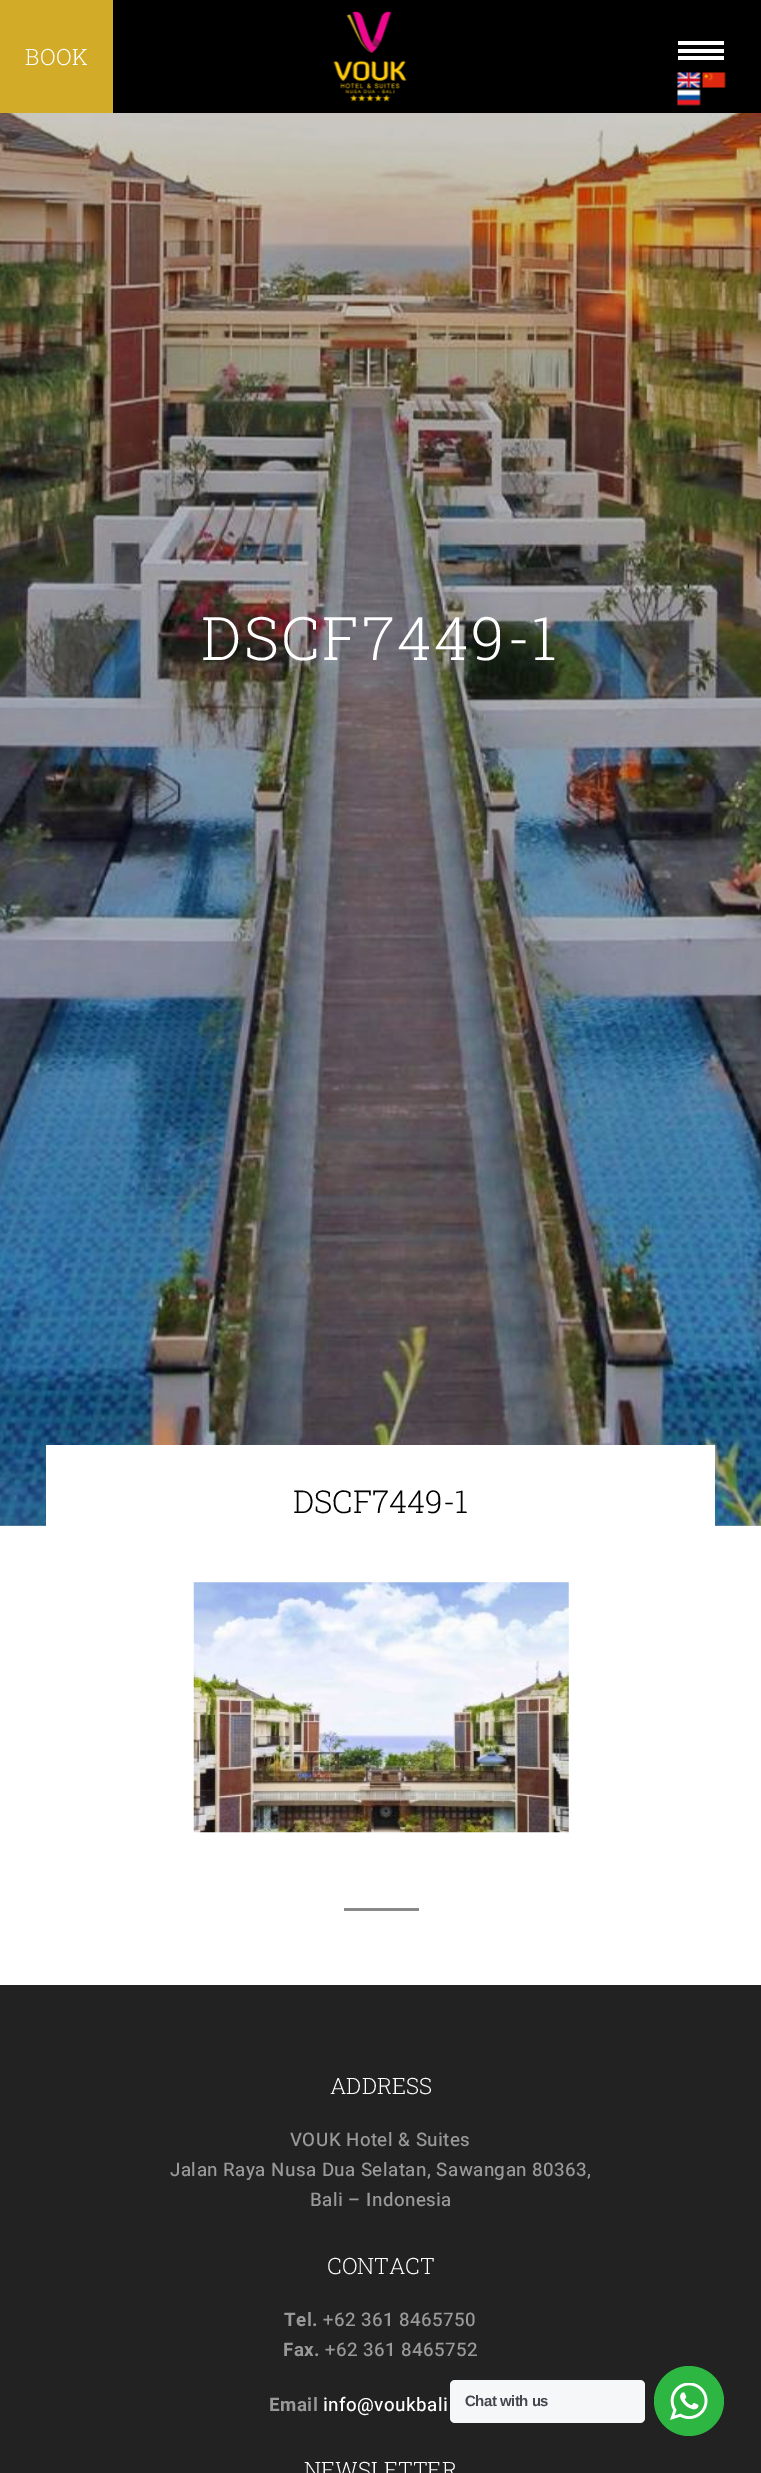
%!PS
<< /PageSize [761 2473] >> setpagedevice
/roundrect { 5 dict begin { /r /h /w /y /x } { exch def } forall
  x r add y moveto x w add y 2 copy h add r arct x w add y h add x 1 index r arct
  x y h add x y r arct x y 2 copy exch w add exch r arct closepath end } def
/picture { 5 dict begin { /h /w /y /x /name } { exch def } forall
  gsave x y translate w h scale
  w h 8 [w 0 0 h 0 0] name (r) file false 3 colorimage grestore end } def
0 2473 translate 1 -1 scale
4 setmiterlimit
1 setgray
0 0 761 2473 rectfill
0 setgray
113 0 648 113 rectfill
0.824 0.671 0.161 setrgbcolor
0 0 113 113 rectfill
/RobotoSlab-Light [22.5 0 0 -22.5 0 0] selectfont
1 setgray
25 65 moveto 0.45 0 (BOOK) ashow
(img1.rgb) 333 11 74 91 picture
678 41 46 4 rectfill
678 49 46 4 rectfill
678 56 46 4 rectfill
(img2.rgb) 677 72 24 16 picture
(img3.rgb) 702 72 24 16 picture
(img4.rgb) 677 89 24 17 picture
(img5.rgb) 0 113 761 1413 picture
/RobotoSlab-Light [60 0 0 -60 0 0] selectfont
201 660 moveto 2.5 0 (DSCF7449-1) ashow
46 1445 669 81 rectfill
/RobotoSlab-Light [31.5 0 0 -31.5 0 0] selectfont
0 setgray
293 1513 moveto (DSCF7449-1) show
(img6.rgb) 193 1582 376 251 picture
0.533 setgray
344 1908 75 3 rectfill
0.133 setgray
0 1985 761 488 rectfill
/RobotoSlab-Light [22.5 0 0 -22.5 0 0] selectfont
1 setgray
330 2094 moveto (ADDRESS) show
/Heebo-Medium [18.75 0 0 -18.75 0 0] selectfont
0.6 setgray
290 2146 moveto 0.45 0 (VOUK Hotel & Suites) ashow
170 2176 moveto 0.45 0 (Jalan Raya Nusa Dua Selatan, Sawangan 80363,) ashow
310 2206 moveto 0.45 0 (Bali – Indonesia) ashow
/RobotoSlab-Light [22.5 0 0 -22.5 0 0] selectfont
1 setgray
327 2274 moveto (CONTACT) show
/Heebo-Bold [18.75 0 0 -18.75 0 0] selectfont
0.6 setgray
284 2326 moveto 0.45 0 (Tel.) ashow
/Heebo-Medium [18.75 0 0 -18.75 0 0] selectfont
323 2326 moveto 0.45 0 (+62 361 8465750) ashow
/Heebo-Bold [18.75 0 0 -18.75 0 0] selectfont
283 2356 moveto 0.45 0 (Fax.) ashow
/Heebo-Medium [18.75 0 0 -18.75 0 0] selectfont
325 2356 moveto 0.45 0 (+62 361 8465752) ashow
/Heebo-Bold [18.75 0 0 -18.75 0 0] selectfont
269 2411 moveto 0.45 0 (Email) ashow
/Heebo-Medium [18.75 0 0 -18.75 0 0] selectfont
1 setgray
323 2411 moveto 0.45 0 (info@voukbali) ashow
/RobotoSlab-Light [22.5 0 0 -22.5 0 0] selectfont
304 2478 moveto (NEWSLETTER) show
0.961 0.969 0.976 setrgbcolor
450 2380 195 43 5 roundrect fill
/LiberationSans-Bold [15 0 0 -15 0 0] selectfont
0.263 0.278 0.306 setrgbcolor
465 2406 moveto -0.5 0 (Chat with us) ashow
0.176 0.718 0.259 setrgbcolor
newpath 689 2401 35 0 360 arc closepath fill
(img7.rgb) 670 2383 38 37 picture
showpage
